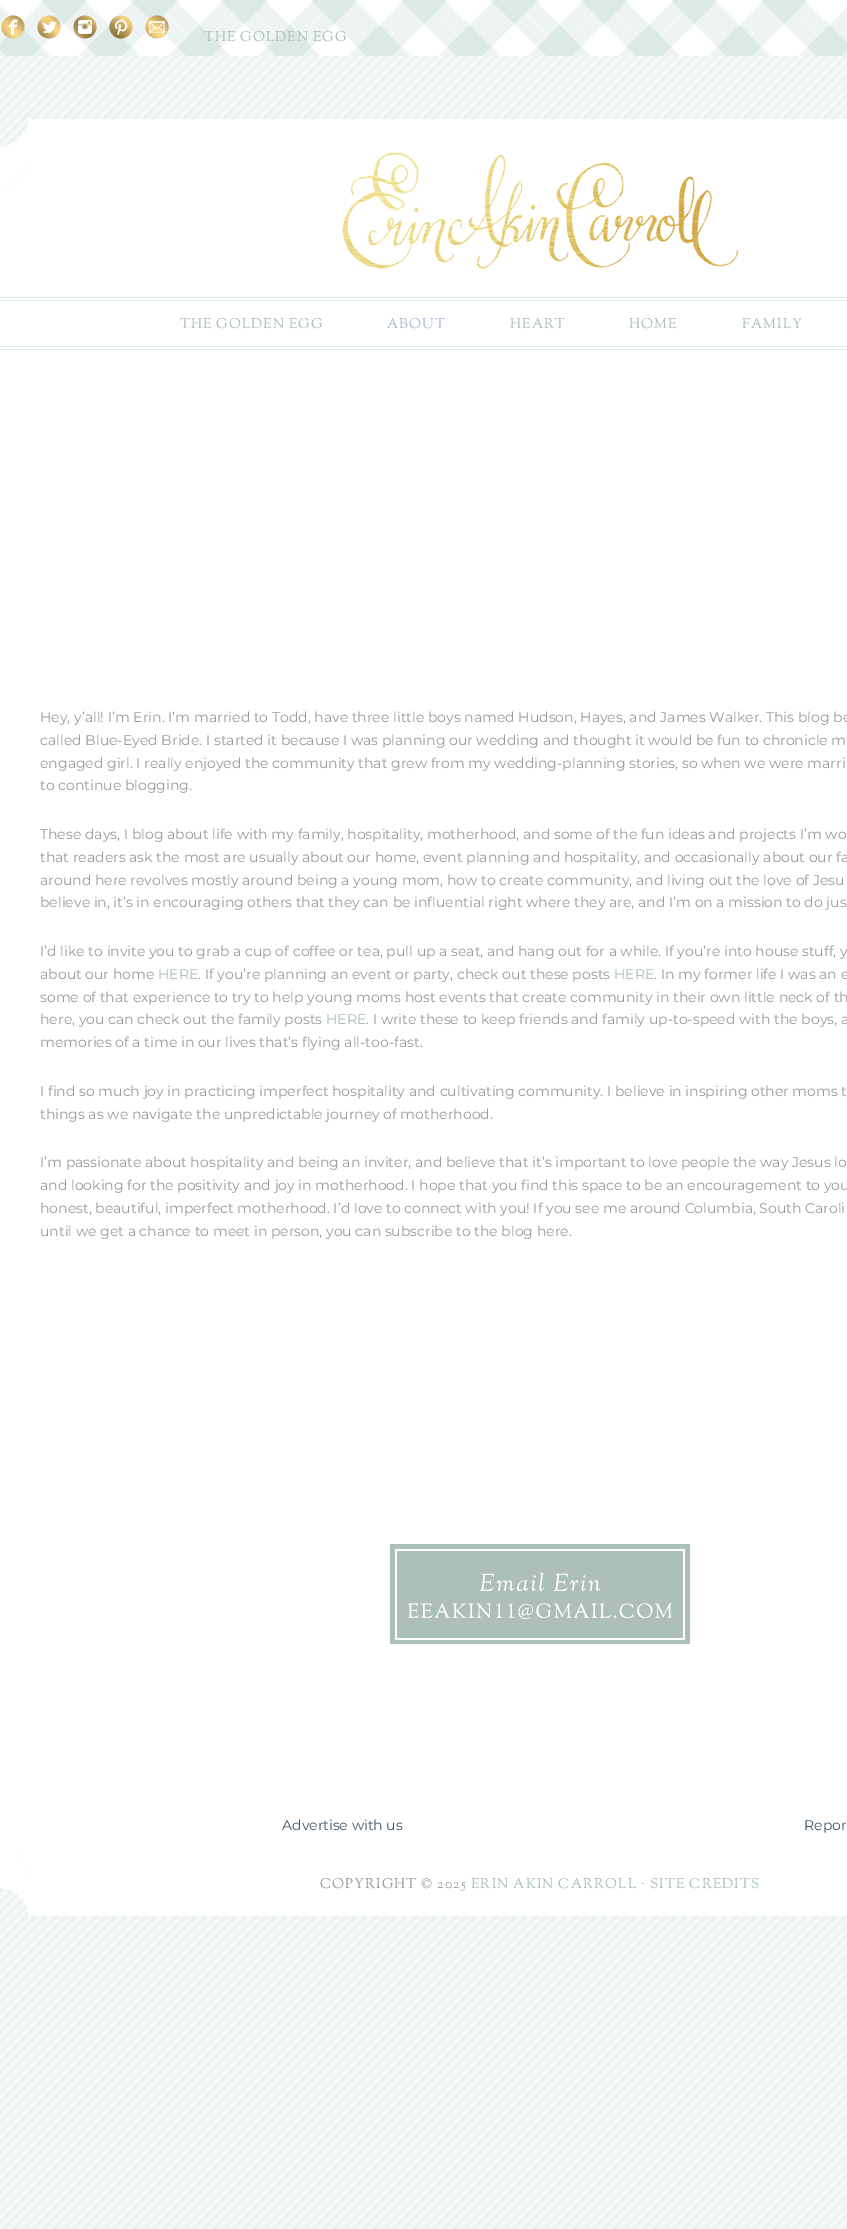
%!PS
<< /PageSize [847 2229] >> setpagedevice
/picture { 5 dict begin { /h /w /y /x /name } { exch def } forall
  gsave x y translate w h scale
  w h 8 [w 0 0 h 0 0] name (r) file false 3 colorimage grestore end } def
0 2229 translate 1 -1 scale
4 setmiterlimit
1 setgray
0 0 847 2229 rectfill
(img1.rgb) 0 56 847 2173 picture
(img2.rgb) 0 0 847 56 picture
(img3.rgb) 1 15 24 24 picture
(img4.rgb) 37 15 24 24 picture
(img5.rgb) 73 15 24 24 picture
(img6.rgb) 109 15 24 24 picture
(img7.rgb) 145 15 24 24 picture
/SortsMillGoudy-Regular [14 0 0 -14 0 0] selectfont
0.675 0.753 0.718 setrgbcolor
204 41 moveto 1 0 (THE GOLDEN EGG) ashow
(img8.rgb) 0 119 847 178 picture
1 setgray
0 298 847 51 rectfill
0.859 0.914 0.914 setrgbcolor
0 297 847 1 rectfill
0 300 847 1 rectfill
0 346 847 1 rectfill
0 349 847 1 rectfill
0.675 0.753 0.718 setrgbcolor
180 328 moveto 1 0 (THE GOLDEN EGG) ashow
0.647 0.725 0.82 setrgbcolor
387 328 moveto 1 0 (ABOUT) ashow
0.675 0.753 0.718 setrgbcolor
510 328 moveto 1 0 (HEART) ashow
629 328 moveto 1 0 (HOME) ashow
742 328 moveto 1 0 (FAMILY) ashow
1 setgray
0 350 847 1504 rectfill
/Montserrat-Thin [14 0 0 -14 0 0] selectfont
0.588 0.608 0.62 setrgbcolor
40 722 moveto (Hey, y’all! I’m Erin. I’m married to Todd, have three little boys named Hudson, Hayes, and James Walker. This blog be) show
40 745 moveto (called Blue-Eyed Bride. I started it because I was planning our wedding and thought it would be fun to chronicle m) show
40 768 moveto (engaged girl. I really enjoyed the community that grew from my wedding-planning stories, so when we were marri) show
40 790 moveto (to continue blogging.) show
40 839 moveto (These days, I blog about life with my family, hospitality, motherhood, and some of the fun ideas and projects I’m wo) show
40 862 moveto (that readers ask the most are usually about our home, event planning and hospitality, and occasionally about our fa) show
40 885 moveto (around here revolves mostly around being a young mom, how to create community, and living out the love of Jesu) show
40 907 moveto (believe in, it’s in encouraging others that they can be influential right where they are, and I’m on a mission to do jus) show
40 956 moveto (I’d like to invite you to grab a cup of coffee or tea, pull up a seat, and hang out for a while. If you’re into house stuff, y) show
40 979 moveto (about our home) show
0.675 0.753 0.718 setrgbcolor
158 979 moveto (HERE) show
0.588 0.608 0.62 setrgbcolor
198 979 moveto (. If you’re planning an event or party, check out these posts) show
0.675 0.753 0.718 setrgbcolor
614 979 moveto (HERE) show
0.588 0.608 0.62 setrgbcolor
654 979 moveto (. In my former life I was an e) show
40 1002 moveto (some of that experience to try to help young moms host events that create community in their own little neck of th) show
40 1024 moveto (here, you can check out the family posts) show
0.675 0.753 0.718 setrgbcolor
326 1024 moveto (HERE) show
0.588 0.608 0.62 setrgbcolor
366 1024 moveto (. I write these to keep friends and family up-to-speed with the boys, a) show
40 1047 moveto (memories of a time in our lives that’s flying all-too-fast.) show
40 1096 moveto (I find so much joy in practicing imperfect hospitality and cultivating community. I believe in inspiring other moms t) show
40 1119 moveto (things as we navigate the unpredictable journey of motherhood.) show
40 1167 moveto (I’m passionate about hospitality and being an inviter, and believe that it’s important to love people the way Jesus lo) show
40 1190 moveto (and looking for the positivity and joy in motherhood. I hope that you find this space to be an encouragement to you) show
40 1213 moveto (honest, beautiful, imperfect motherhood. I’d love to connect with you! If you see me around Columbia, South Caroli) show
40 1236 moveto (until we get a chance to meet in person, you can subscribe to the blog here.) show
(img9.rgb) 390 1544 300 100 picture
0.239 0.333 0.404 setrgbcolor
282 1830 moveto (Advertise with us) show
804 1830 moveto (Repor) show
(img10.rgb) 0 1854 847 62 picture
/SortsMillGoudy-Regular [14 0 0 -14 0 0] selectfont
0.588 0.608 0.62 setrgbcolor
320 1888 moveto 1 0 (COPYRIGHT © 2025) ashow
0.675 0.753 0.718 setrgbcolor
471 1888 moveto 1 0 (ERIN AKIN CARROLL) ashow
0.588 0.608 0.62 setrgbcolor
641 1888 moveto 1 0 (·) ashow
0.675 0.753 0.718 setrgbcolor
650 1888 moveto 1 0 (SITE CREDITS) ashow
showpage
